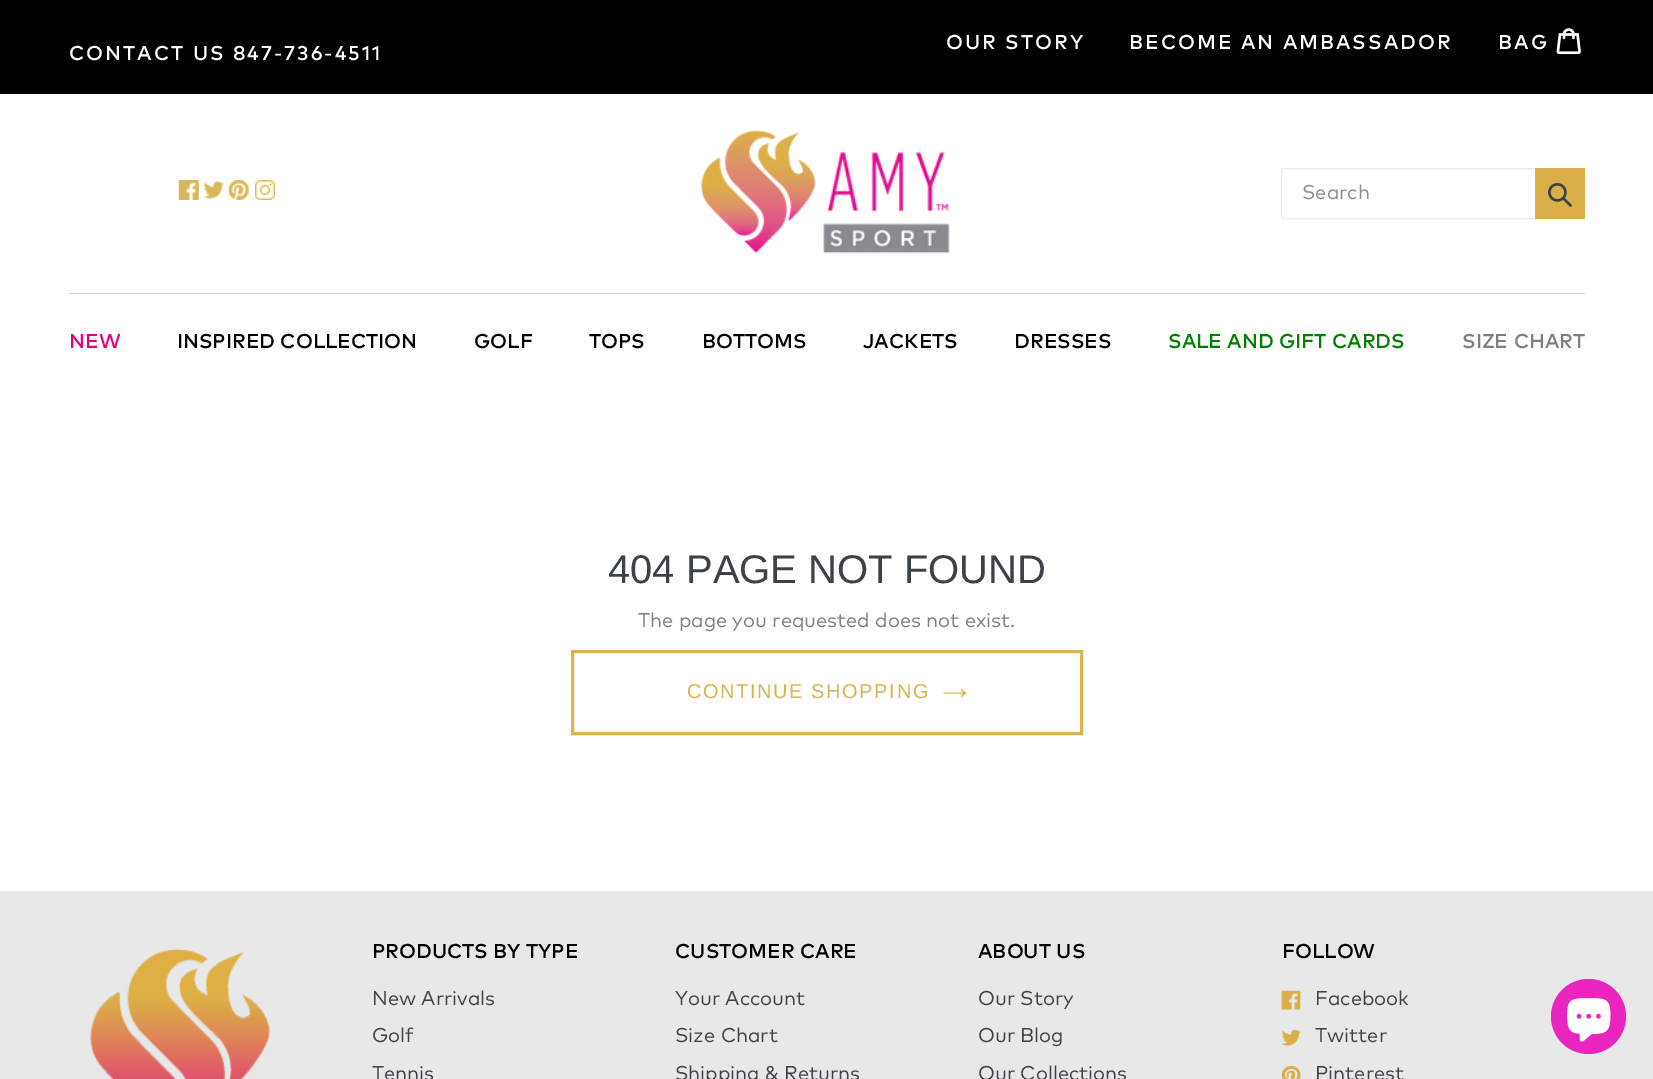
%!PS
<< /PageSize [1653 1079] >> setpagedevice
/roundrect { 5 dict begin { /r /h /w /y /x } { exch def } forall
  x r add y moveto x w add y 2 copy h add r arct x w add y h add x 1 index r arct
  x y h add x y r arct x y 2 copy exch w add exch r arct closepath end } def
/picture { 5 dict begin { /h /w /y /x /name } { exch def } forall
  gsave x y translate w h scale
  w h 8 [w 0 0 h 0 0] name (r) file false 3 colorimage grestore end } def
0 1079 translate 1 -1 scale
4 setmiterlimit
1 setgray
0 0 1653 1079 rectfill
0 setgray
0 0 1653 94 rectfill
/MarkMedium-Medium [20 0 0 -20 0 0] selectfont
1 setgray
946 49 moveto 2 0 (OUR STORY) ashow
1129 49 moveto 2 0 (BECOME AN AMBASSADOR) ashow
1498 49 moveto 2 0 (BAG) ashow
(img1.rgb) 1556 28 25 27 picture
69 60 moveto 2 0 (CONTACT US 847-736-4511) ashow
(img2.rgb) 178 180 21 20 picture
(img3.rgb) 203 181 21 18 picture
(img4.rgb) 228 180 21 20 picture
(img5.rgb) 255 180 20 20 picture
(img6.rgb) 701 130 249 124 picture
0.91 0.914 0.922 setrgbcolor
1281.5 168.5 303 50 2 roundrect stroke
/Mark-Regular [20 0 0 -20 0 0] selectfont
0.545 0.557 0.565 setrgbcolor
1302 199 moveto (Search) show
0.859 0.686 0.278 setrgbcolor
1535 168 50 51 rectfill
(img7.rgb) 1548 183 24 24 picture
0.8 setgray
69 293 1516 1 rectfill
/MarkMedium-Medium [20 0 0 -20 0 0] selectfont
0.902 0 0.494 setrgbcolor
69 348 moveto (NEW) show
0 setgray
177 348 moveto (INSPIRED COLLECTION) show
474 348 moveto (GOLF) show
589 348 moveto (TOPS) show
702 348 moveto (BOTTOMS) show
863 348 moveto (JACKETS) show
1014 348 moveto (DRESSES) show
0 0.502 0 setrgbcolor
1168 348 moveto (SALE AND GIFT CARDS) show
0.498 setgray
1462 348 moveto (SIZE CHART) show
/LiberationSans-Regular [40 0 0 -40 0 0] selectfont
0.239 0.259 0.275 setrgbcolor
608 583 moveto (404 PAGE NOT FOUND) show
/Mark-Regular [20 0 0 -20 0 0] selectfont
0.471 0.506 0.533 setrgbcolor
638 627 moveto (The page you requested does not exist.) show
0.859 0.706 0.314 setrgbcolor
3 setlinewidth
572.5 651.5 509 82 rectstroke
/LiberationSans-Regular [20 0 0 -20 0 0] selectfont
687 698 moveto 1.6 0 (CONTINUE SHOPPING) ashow
(img8.rgb) 943 688 24 10 picture
0.91 setgray
0 891 1653 188 rectfill
(img9.rgb) 89 948 182 131 picture
/MarkMedium-Medium [20 0 0 -20 0 0] selectfont
0 setgray
372 958 moveto (PRODUCTS BY TYPE) show
/Mark-Regular [20 0 0 -20 0 0] selectfont
0.239 0.259 0.275 setrgbcolor
372 1005 moveto (New Arrivals) show
372 1042 moveto (Golf) show
372 1080 moveto (Tennis) show
/MarkMedium-Medium [20 0 0 -20 0 0] selectfont
0 setgray
675 958 moveto (CUSTOMER CARE) show
/Mark-Regular [20 0 0 -20 0 0] selectfont
0.239 0.259 0.275 setrgbcolor
675 1005 moveto (Your Account) show
675 1042 moveto (Size Chart) show
675 1080 moveto (Shipping & Returns) show
/MarkMedium-Medium [20 0 0 -20 0 0] selectfont
0 setgray
978 958 moveto (ABOUT US) show
/Mark-Regular [20 0 0 -20 0 0] selectfont
0.239 0.259 0.275 setrgbcolor
978 1005 moveto (Our Story) show
978 1042 moveto (Our Blog) show
978 1080 moveto (Our Collections) show
/MarkMedium-Medium [20 0 0 -20 0 0] selectfont
0 setgray
1282 958 moveto (FOLLOW) show
(img10.rgb) 1281 990 20 20 picture
/Mark-Regular [20 0 0 -20 0 0] selectfont
0.239 0.259 0.275 setrgbcolor
1315 1005 moveto (Facebook) show
(img11.rgb) 1281 1029 20 17 picture
1315 1042 moveto (Twitter) show
(img12.rgb) 1281 1065 20 14 picture
1315 1080 moveto (Pinterest) show
0.918 0.145 0.741 setrgbcolor
newpath 1588.5 1016.5 37.5 0 360 arc closepath fill
(img13.rgb) 1567 998 44 44 picture
showpage
